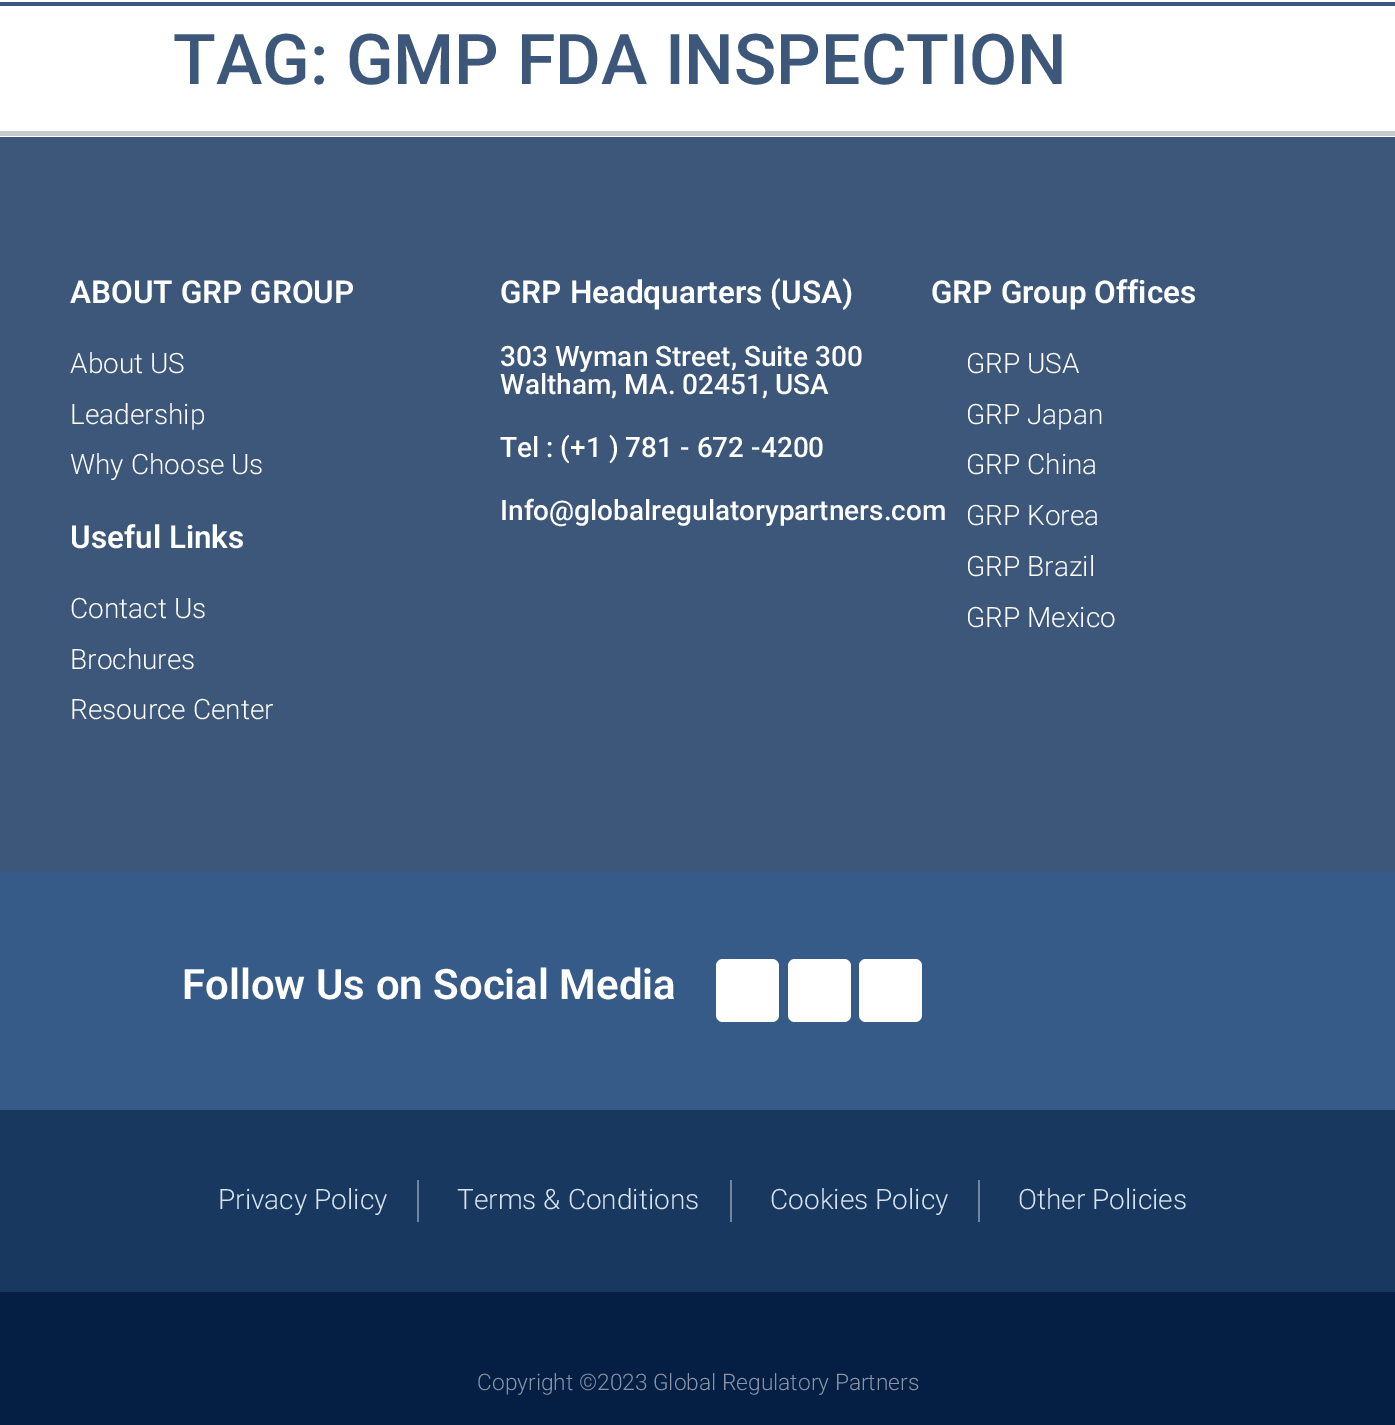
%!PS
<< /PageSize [1395 1425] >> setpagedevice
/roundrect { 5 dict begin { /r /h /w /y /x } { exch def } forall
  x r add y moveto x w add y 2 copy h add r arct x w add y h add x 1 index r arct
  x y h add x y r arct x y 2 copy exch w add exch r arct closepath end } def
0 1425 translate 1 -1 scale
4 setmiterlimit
1 setgray
0 0 1395 1425 rectfill
0.235 0.341 0.475 setrgbcolor
0 2 1395 4 rectfill
/Roboto-Medium [70 0 0 -70 0 0] selectfont
173 84 moveto (TAG: GMP FDA INSPECTION) show
0 137 1395 735 rectfill
0.78 0.788 0.816 setrgbcolor
0 131 1395 5 rectfill
/Roboto-SemiBold [31.5 0 0 -31.5 0 0] selectfont
1 setgray
70 303 moveto (ABOUT GRP GROUP) show
/Roboto-Light [28 0 0 -28 0 0] selectfont
70 373 moveto (About US) show
70 424 moveto (Leadership) show
70 474 moveto (Why Choose Us) show
/Roboto-SemiBold [31.5 0 0 -31.5 0 0] selectfont
70 548 moveto (Useful Links) show
/Roboto-Light [28 0 0 -28 0 0] selectfont
70 618 moveto (Contact Us) show
70 669 moveto (Brochures) show
70 719 moveto (Resource Center) show
/Roboto-SemiBold [31.5 0 0 -31.5 0 0] selectfont
500 303 moveto (GRP Headquarters \(USA\)) show
/Roboto-Medium [28 0 0 -28 0 0] selectfont
500 366 moveto (303 Wyman Street, Suite 300) show
500 394 moveto (Waltham, MA. 02451, USA) show
500 457 moveto (Tel : \(+1 \) 781 - 672 -4200) show
500 520 moveto (Info@globalregulatorypartners.com) show
/Roboto-SemiBold [31.5 0 0 -31.5 0 0] selectfont
931 303 moveto (GRP Group Offices) show
/Roboto-Light [28 0 0 -28 0 0] selectfont
966 373 moveto (GRP USA) show
966 424 moveto (GRP Japan) show
966 474 moveto (GRP China) show
966 525 moveto (GRP Korea) show
966 576 moveto (GRP Brazil) show
966 627 moveto (GRP Mexico) show
0.216 0.357 0.533 setrgbcolor
0 872 1395 238 rectfill
/Roboto-SemiBold [42 0 0 -42 0 0] selectfont
1 setgray
182 999 moveto (Follow Us on Social Media) show
716 959 63 63 7 roundrect fill
788 959 63 63 7 roundrect fill
859 959 63 63 7 roundrect fill
0.094 0.22 0.373 setrgbcolor
0 1110 1395 182 rectfill
/Roboto-Light [28 0 0 -28 0 0] selectfont
0.851 0.89 0.941 setrgbcolor
218 1209 moveto (Privacy Policy) show
0.443 0.522 0.624 setrgbcolor
417 1180 2 42 rectfill
0.851 0.89 0.941 setrgbcolor
457 1209 moveto (Terms & Conditions) show
0.443 0.522 0.624 setrgbcolor
730 1180 2 42 rectfill
0.851 0.89 0.941 setrgbcolor
770 1209 moveto (Cookies Policy) show
0.443 0.522 0.624 setrgbcolor
978 1180 2 42 rectfill
0.851 0.89 0.941 setrgbcolor
1018 1209 moveto (Other Policies) show
0.016 0.118 0.267 setrgbcolor
0 1292 1395 133 rectfill
/Roboto-Light [22.75 0 0 -22.75 0 0] selectfont
0.537 0.584 0.655 setrgbcolor
477 1390 moveto (Copyright ©2023 Global Regulatory Partners) show
showpage
